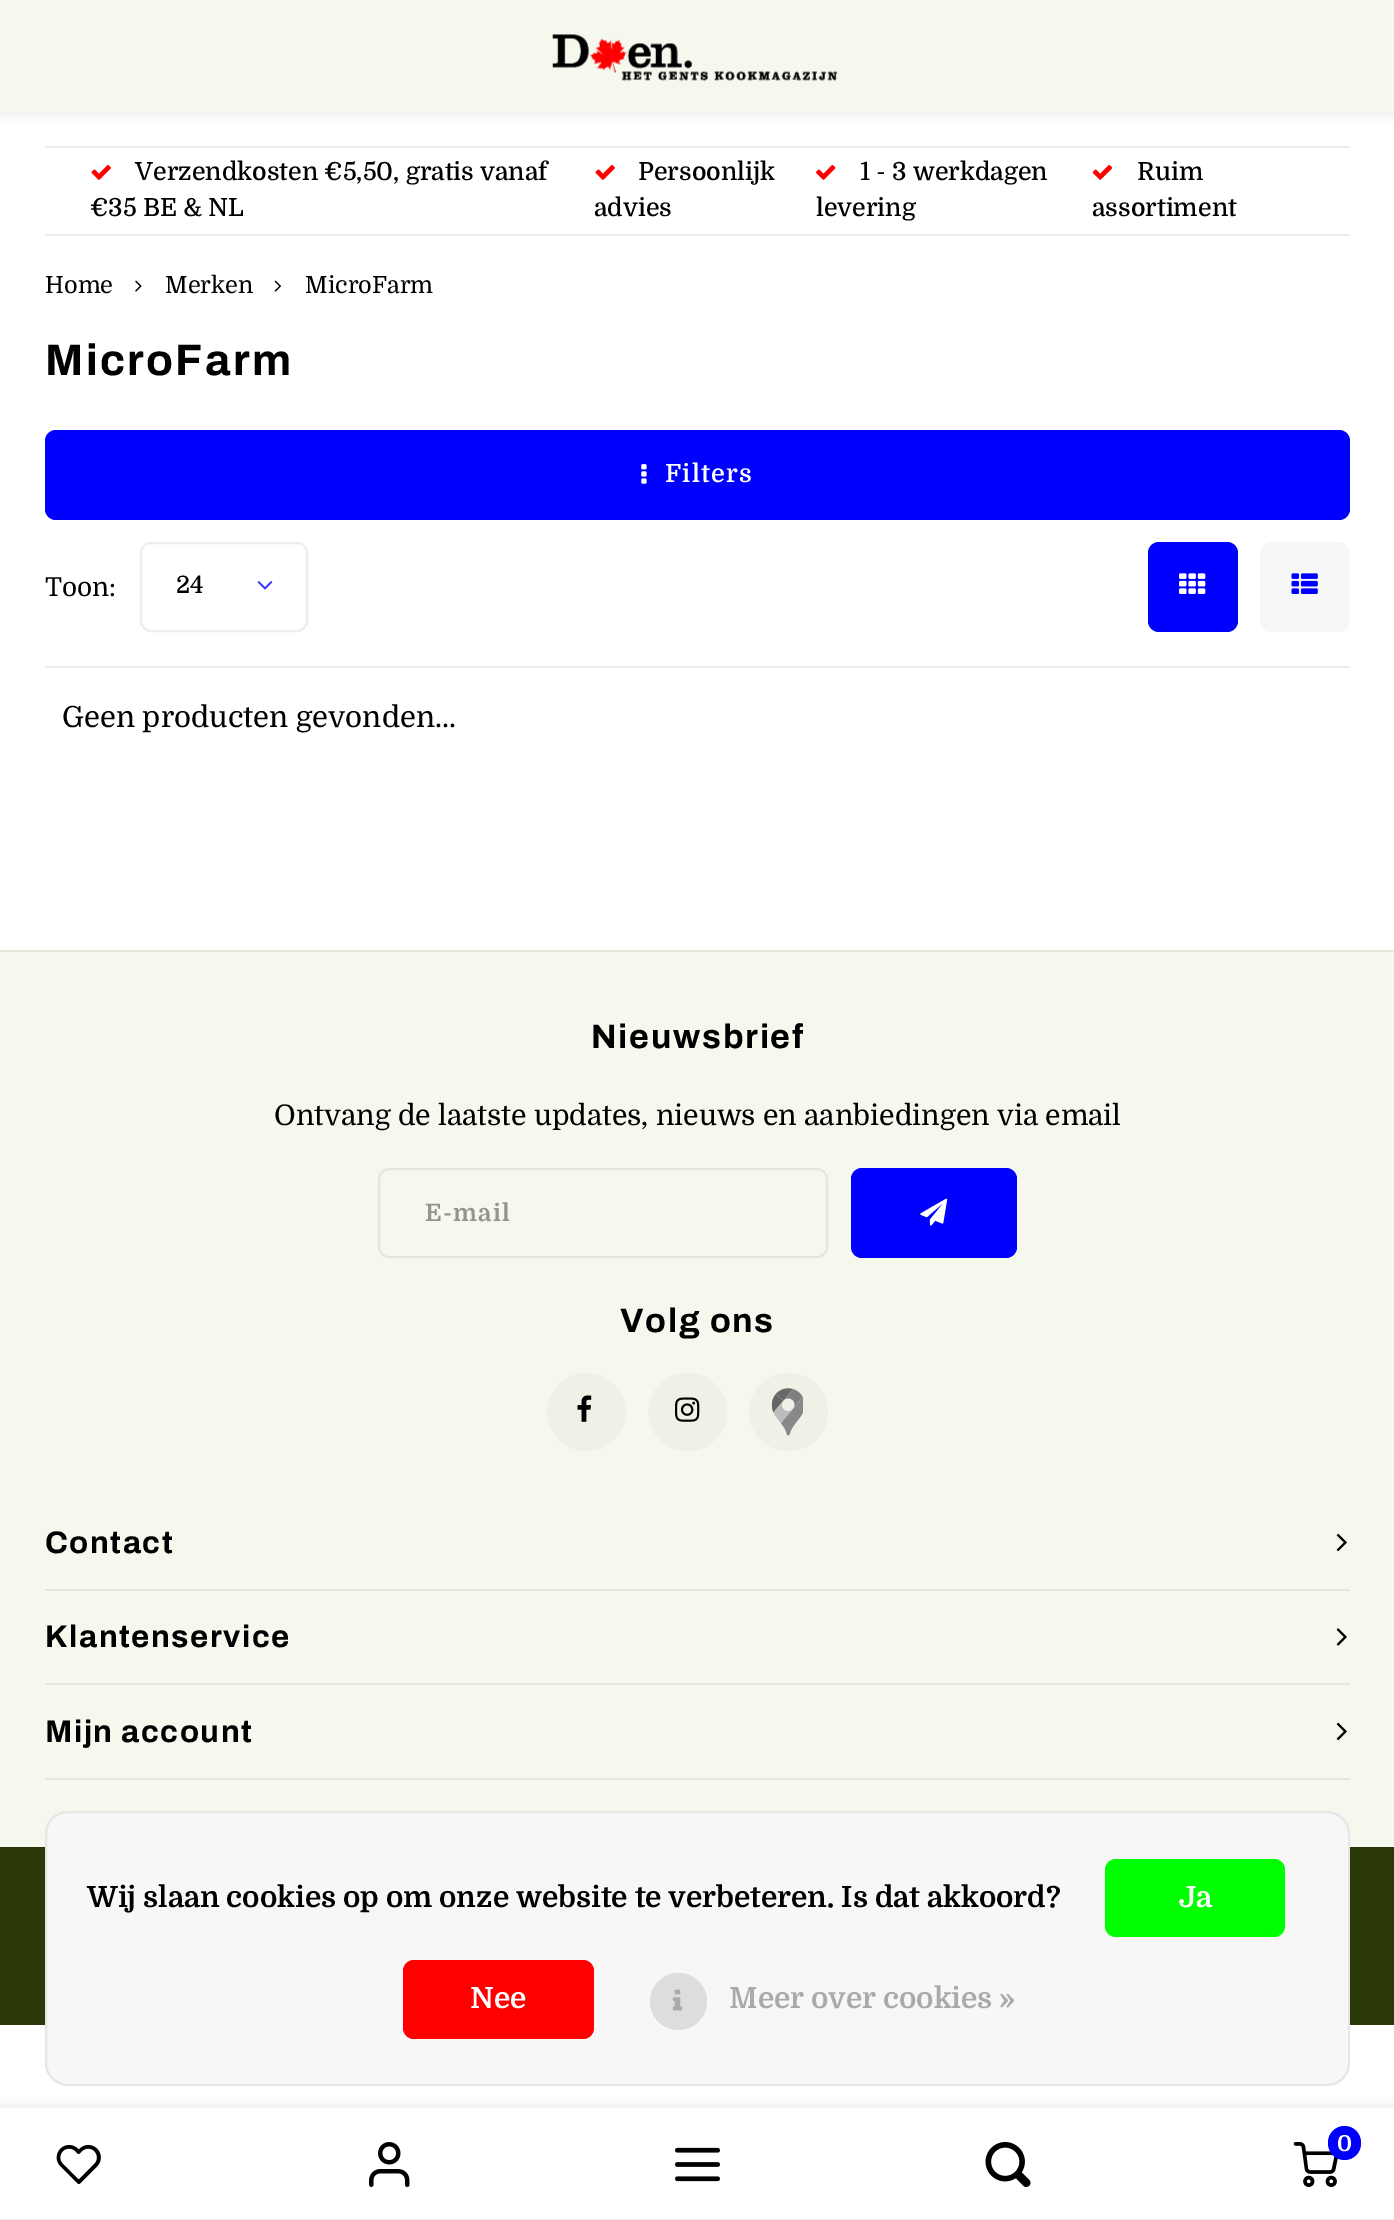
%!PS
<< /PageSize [1394 2220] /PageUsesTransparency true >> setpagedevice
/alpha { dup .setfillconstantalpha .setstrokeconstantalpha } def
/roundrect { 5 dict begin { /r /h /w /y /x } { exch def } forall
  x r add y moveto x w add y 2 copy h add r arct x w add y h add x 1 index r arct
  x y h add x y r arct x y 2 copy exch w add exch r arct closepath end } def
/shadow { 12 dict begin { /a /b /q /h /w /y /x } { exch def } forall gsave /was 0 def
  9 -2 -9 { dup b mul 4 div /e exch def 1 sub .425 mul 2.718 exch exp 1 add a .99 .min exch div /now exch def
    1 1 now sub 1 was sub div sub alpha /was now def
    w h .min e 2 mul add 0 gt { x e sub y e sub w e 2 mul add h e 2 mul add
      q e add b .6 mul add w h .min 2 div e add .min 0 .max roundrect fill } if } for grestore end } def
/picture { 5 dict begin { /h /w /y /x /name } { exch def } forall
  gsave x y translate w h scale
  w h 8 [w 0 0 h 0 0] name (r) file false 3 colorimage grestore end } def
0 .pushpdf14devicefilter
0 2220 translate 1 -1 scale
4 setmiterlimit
1 setgray
0 0 1394 2220 rectfill
0 setgray
0 2 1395 113 0 4.5 0.08 shadow
0.957 0.973 0.929 setrgbcolor
0 0 1394 113 rectfill
(img1.rgb) 552 34 286 47 picture
0.929 setgray
45 146 1305 2 rectfill
45 234 1305 2 rectfill
(img2.rgb) 91 165 20 15 picture
/Domine-Medium [24.9 0 0 -24.9 0 0] selectfont
0 setgray
135 180 moveto (Verzendkosten €5,50, gratis vanaf) show
90 216 moveto (€35 BE & NL) show
(img2.rgb) 595 165 20 15 picture
638 180 moveto (Persoonlijk) show
594 216 moveto (advies) show
(img3.rgb) 816 165 20 15 picture
860 180 moveto (1 - 3 werkdagen) show
816 216 moveto (levering) show
(img4.rgb) 1092 165 21 15 picture
1137 180 moveto (Ruim) show
1092 216 moveto (assortiment) show
/Domine-Regular [23.5 0 0 -23.5 0 0] selectfont
45 293 moveto (Home) show
(img5.rgb) 135 280 7 12 picture
165 293 moveto (Merken) show
(img6.rgb) 274 280 8 12 picture
305 293 moveto (MicroFarm) show
/Archivo-Bold [44 0 0 -44 0 0] selectfont
45 375 moveto 2.25 0 (MicroFarm) ashow
0.929 setgray
45 666 1305 2 rectfill
0 0 1 setrgbcolor
45 430 1305 90 11 roundrect fill
(img7.rgb) 641 464 6 20 picture
/Domine-SemiBold [25 0 0 -25 0 0] selectfont
1 setgray
665 482 moveto 1.25 0 (Filters) ashow
/Domine-Regular [26 0 0 -26 0 0] selectfont
0 setgray
45 596 moveto (Toon:) show
0.929 setgray
2 setlinewidth
141 543 166 88 10 roundrect stroke
/Domine-Medium [24 0 0 -24 0 0] selectfont
0 setgray
176 593 moveto (24) show
(img8.rgb) 257 581 16 9 picture
0 0 1 setrgbcolor
1148 542 90 90 11 roundrect fill
(img9.rgb) 1179 573 27 21 picture
0.969 setgray
1260 542 90 90 11 roundrect fill
(img10.rgb) 1291 573 27 21 picture
/Domine-Regular [29.25 0 0 -29.25 0 0] selectfont
0 setgray
62 727 moveto (Geen producten gevonden...) show
0.957 0.973 0.929 setrgbcolor
0 952 1394 895 rectfill
0.89 0.906 0.863 setrgbcolor
0 950 1394 2 rectfill
/Archivo-Bold [34 0 0 -34 0 0] selectfont
0 setgray
591 1048 moveto 1.75 0 (Nieuwsbrief) ashow
/Domine-Regular [28.4 0 0 -28.4 0 0] selectfont
274 1125 moveto (Ontvang de laatste updates, nieuws en aanbiedingen via email) show
0.89 0.906 0.863 setrgbcolor
379 1169 448 88 10 roundrect stroke
/Domine-Bold [24 0 0 -24 0 0] selectfont
0.573 0.584 0.557 setrgbcolor
425 1221 moveto 1.25 0 (E-mail) ashow
0 0 1 setrgbcolor
851 1168 166 90 11 roundrect fill
(img11.rgb) 920 1198 28 28 picture
/Archivo-Bold [34 0 0 -34 0 0] selectfont
0 setgray
620 1332 moveto 1.75 0 (Volg ons) ashow
0.929 0.945 0.902 setrgbcolor
547 1373 79 78 39 roundrect fill
(img12.rgb) 577 1395 15 27 picture
648 1373 79 78 39 roundrect fill
(img13.rgb) 675 1397 25 25 picture
749 1373 79 78 39 roundrect fill
(img14.rgb) 772 1388 31 48 picture
0.89 0.906 0.863 setrgbcolor
45 1589 1305 2 rectfill
/Archivo-Bold [31.25 0 0 -31.25 0 0] selectfont
0 setgray
45 1553 moveto 1.5 0 (Contact) ashow
(img15.rgb) 1336 1533 11 19 picture
0.89 0.906 0.863 setrgbcolor
45 1683 1305 2 rectfill
0 setgray
45 1647 moveto 1.5 0 (Klantenservice) ashow
(img16.rgb) 1336 1628 11 18 picture
0.89 0.906 0.863 setrgbcolor
45 1778 1305 2 rectfill
0 setgray
45 1742 moveto 1.5 0 (Mijn account) ashow
(img15.rgb) 1336 1722 11 19 picture
0.169 0.224 0.027 setrgbcolor
0 1849 1394 176 rectfill
0.157 0.208 0.027 setrgbcolor
0 1847 1394 2 rectfill
0.969 setgray
45 1811 1305 275 23 roundrect fill
0.07 alpha
0 setgray
46 1812 1303 273 22 roundrect stroke
/Domine-Bold [29.25 0 0 -29.25 0 0] selectfont
1 alpha
87 1907 moveto (Wij slaan cookies op om onze website te verbeteren. Is dat akkoord?) show
0 1 0 setrgbcolor
1105 1859 180 78 11 roundrect fill
1 setgray
1179 1907 moveto (Ja) show
1 0 0 setrgbcolor
403 1960 191 79 11 roundrect fill
1 setgray
470 2008 moveto (Nee) show
0.867 setgray
newpath 678.5 2001.5 28.5 0 360 arc closepath fill
(img17.rgb) 672 1989 11 22 picture
0.667 setgray
729 2008 moveto (Meer over cookies ») show
0 setgray
0 2106 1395 113 0 5.5 0.08 shadow
1 setgray
0 2108 1394 111 rectfill
0.929 setgray
0 2219 1394 1 rectfill
(img18.rgb) 56 2144 45 41 picture
(img19.rgb) 369 2142 41 45 picture
(img20.rgb) 675 2147 45 35 picture
(img21.rgb) 985 2142 46 45 picture
(img22.rgb) 1293 2142 45 45 picture
0 0 1 setrgbcolor
1328 2126 33 34 16.5 roundrect fill
/Domine-Bold [22 0 0 -22 0 0] selectfont
1 setgray
1337 2151 moveto (0) show
.poppdf14devicefilter showpage
